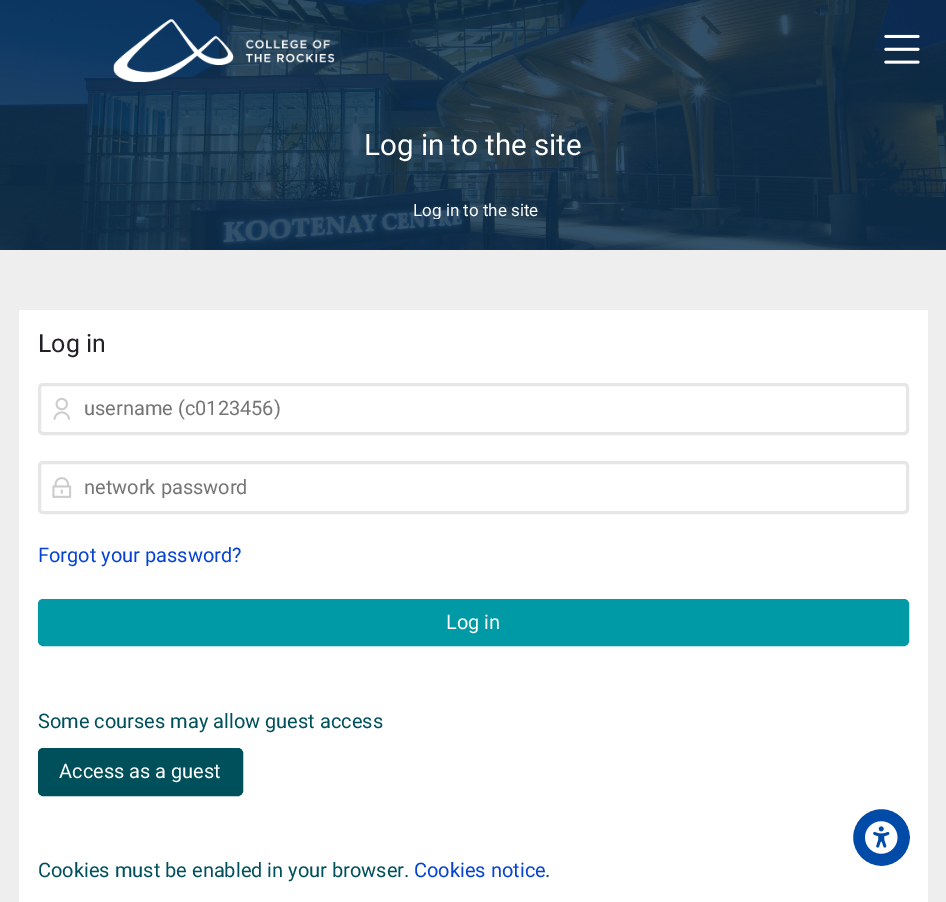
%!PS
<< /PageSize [946 902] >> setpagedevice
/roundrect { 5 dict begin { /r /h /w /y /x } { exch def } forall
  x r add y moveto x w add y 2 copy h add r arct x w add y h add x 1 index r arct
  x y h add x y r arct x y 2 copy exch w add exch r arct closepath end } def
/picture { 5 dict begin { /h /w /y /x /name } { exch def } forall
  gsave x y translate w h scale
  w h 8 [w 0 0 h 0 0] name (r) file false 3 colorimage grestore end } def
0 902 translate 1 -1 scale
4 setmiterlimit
0.933 setgray
0 0 946 902 rectfill
0.055 0.192 0.31 setrgbcolor
0 0 946 250 rectfill
(img3.rgb) 0 0 946 250 picture
(img1.rgb) 113 19 222 64 picture
(img2.rgb) 884 34 36 30 picture
/Roboto-Regular [29.5 0 0 -29.5 0 0] selectfont
1 setgray
364 155 moveto (Log in to the site) show
gsave
414 203 125 16 rectclip
/Roboto-Regular [17 0 0 -17 0 0] selectfont
413 216 moveto (Log in to the site) show
grestore
19 310 909 592 rectfill
/Roboto-Regular [25 0 0 -25 0 0] selectfont
0.141 0.125 0.153 setrgbcolor
38 352 moveto (Log in) show
0.902 setgray
3 setlinewidth
39.5 384.5 868 49 3.5 roundrect stroke
(img4.rgb) 53 397 17 23 picture
/Roboto-Regular [20 0 0 -20 0 0] selectfont
0.459 setgray
84 415 moveto (username \(c0123456\)) show
0.902 setgray
39.5 462.5 868 50 3.5 roundrect stroke
(img5.rgb) 52 477 20 21 picture
0.459 setgray
84 494 moveto (network password) show
0.024 0.263 0.835 setrgbcolor
38 562 moveto (Forgot your password?) show
0 0.604 0.651 setrgbcolor
38.5 599.5 870 46 4.5 roundrect gsave fill grestore
1 setlinewidth
stroke
1 setgray
446 629 moveto (Log in) show
0 0.314 0.361 setrgbcolor
38 728 moveto (Some courses may allow guest access) show
38.5 748.5 204 47 4.5 roundrect gsave fill grestore
stroke
1 setgray
59 778 moveto (Access as a guest) show
0 0.314 0.361 setrgbcolor
38 877 moveto (Cookies must be enabled in your browser.) show
0.024 0.263 0.835 setrgbcolor
414 877 moveto (Cookies notice) show
0 0.314 0.361 setrgbcolor
545 877 moveto (.) show
0 0.294 0.659 setrgbcolor
newpath 881.5 837.5 30 0 360 arc closepath gsave fill grestore
1 setgray
3 setlinewidth
stroke
(img6.rgb) 865 821 33 33 picture
showpage
